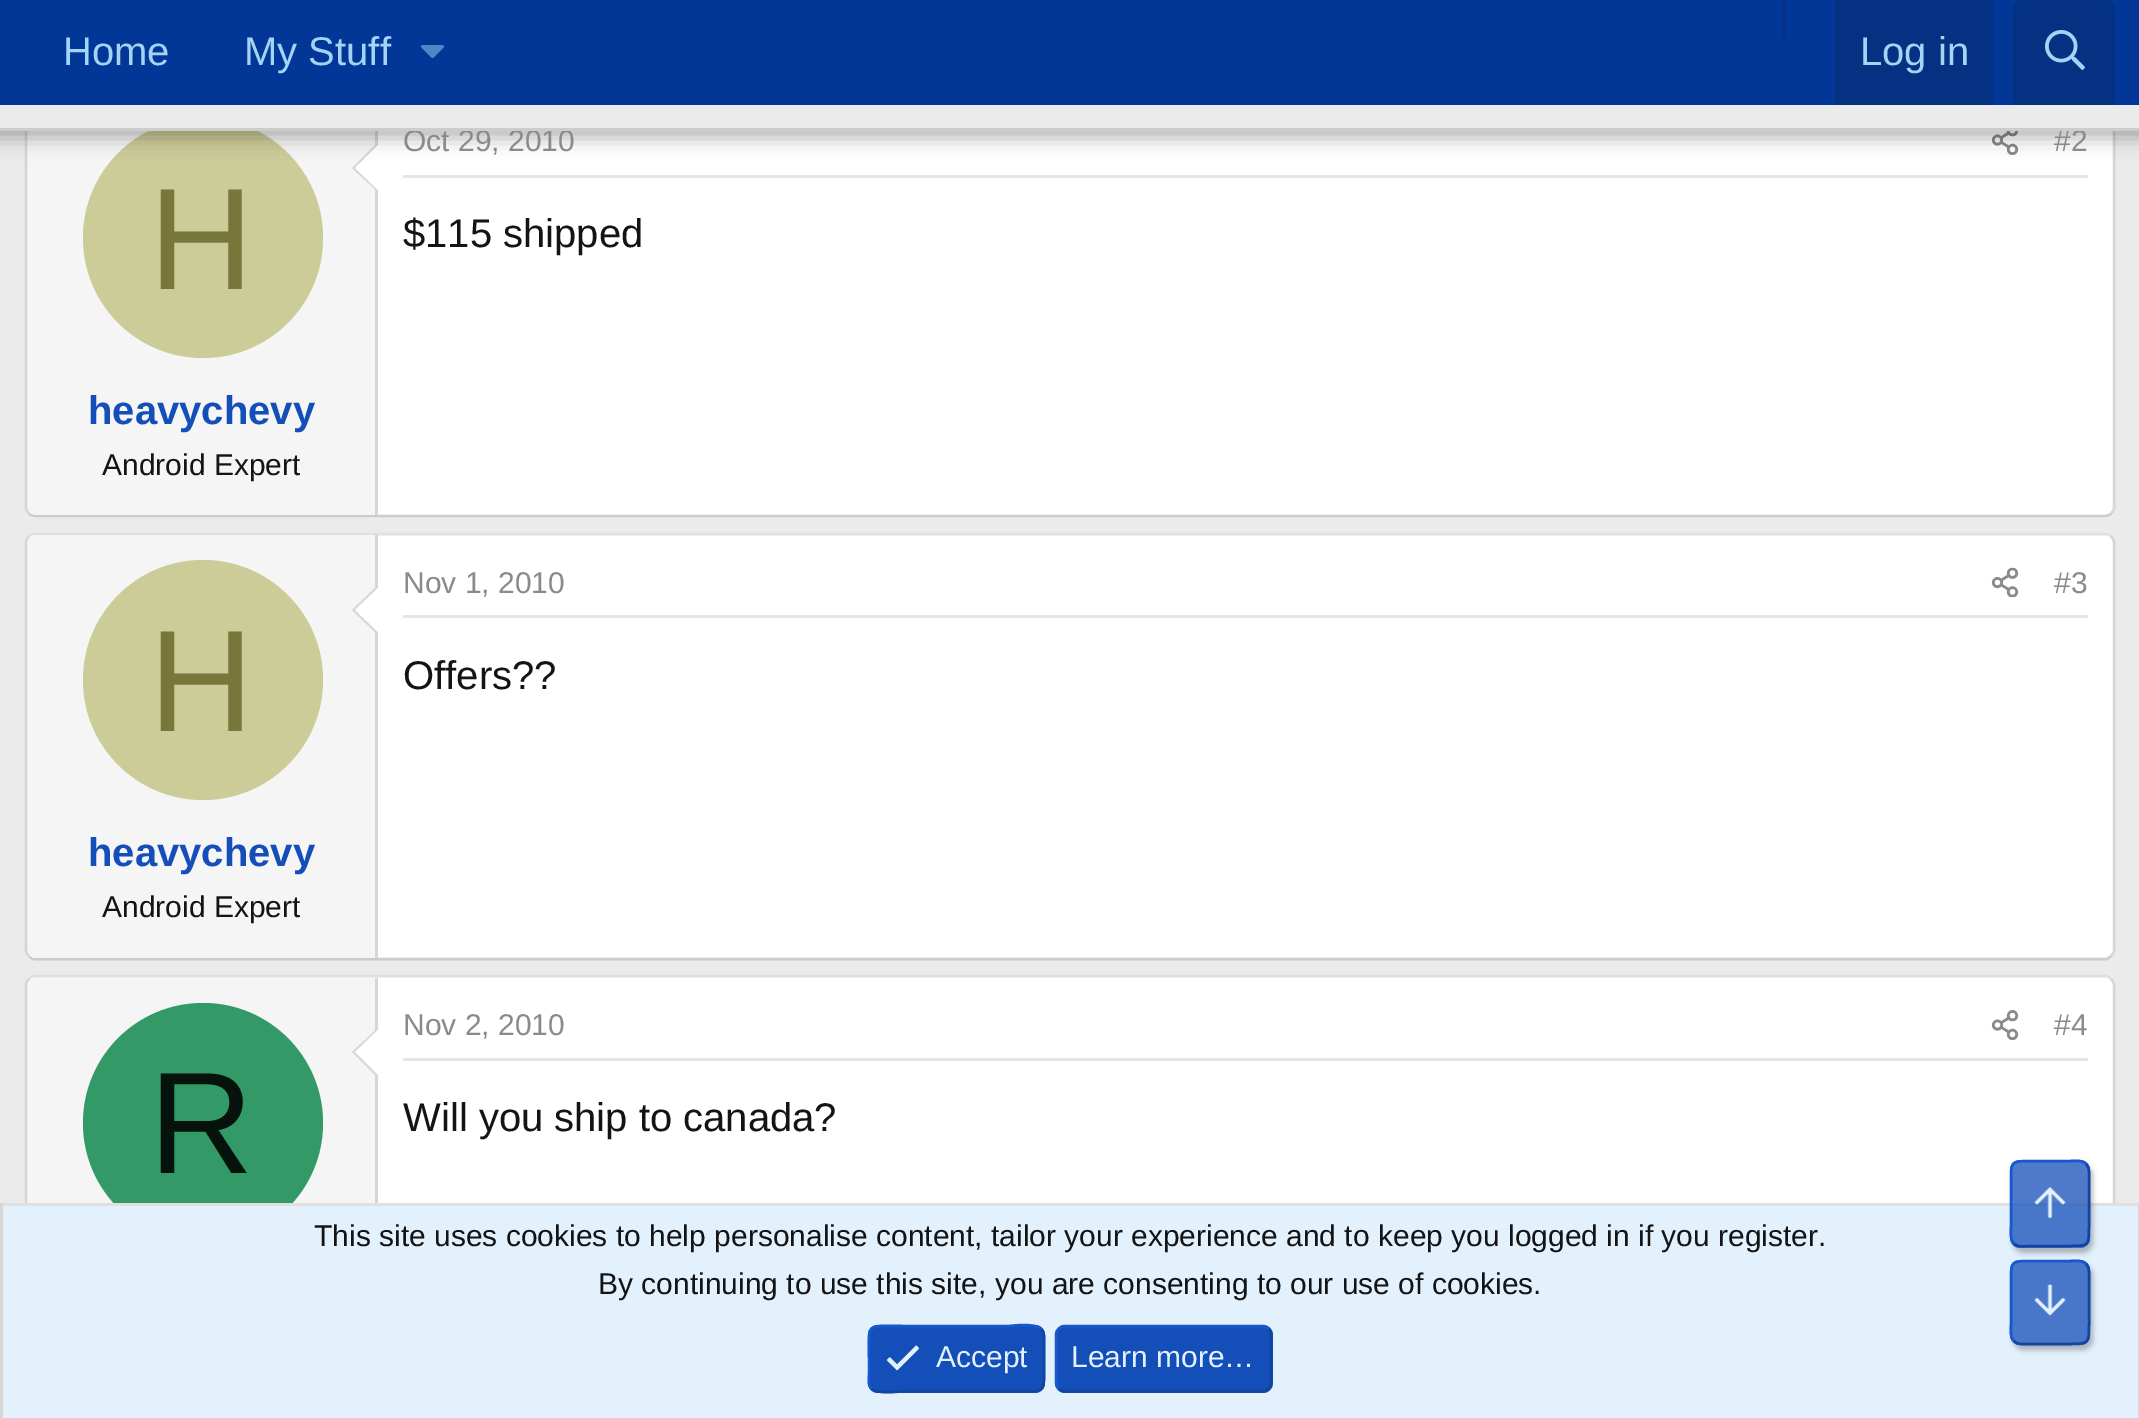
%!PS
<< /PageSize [2139 1418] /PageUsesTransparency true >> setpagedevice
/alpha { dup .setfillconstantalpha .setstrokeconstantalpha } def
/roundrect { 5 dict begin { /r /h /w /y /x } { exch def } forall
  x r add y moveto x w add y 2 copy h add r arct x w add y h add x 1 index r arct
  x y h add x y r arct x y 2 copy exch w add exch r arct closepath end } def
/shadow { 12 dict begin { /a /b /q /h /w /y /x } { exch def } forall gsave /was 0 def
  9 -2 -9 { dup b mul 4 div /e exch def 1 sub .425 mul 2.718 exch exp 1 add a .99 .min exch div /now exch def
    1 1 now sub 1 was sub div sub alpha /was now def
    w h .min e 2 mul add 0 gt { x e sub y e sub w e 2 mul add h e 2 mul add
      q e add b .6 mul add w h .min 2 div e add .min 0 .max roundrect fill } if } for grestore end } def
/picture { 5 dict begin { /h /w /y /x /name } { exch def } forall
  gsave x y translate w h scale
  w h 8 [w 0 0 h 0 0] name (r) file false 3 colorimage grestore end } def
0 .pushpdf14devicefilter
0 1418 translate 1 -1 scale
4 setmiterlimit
0.922 setgray
0 0 2139 1418 rectfill
1 setgray
25 90 2090 428 10 roundrect fill
0.839 setgray
2.5 setlinewidth
newpath 2111 94 moveto 2113 95.5 2114 97.5 2114 100 curveto 2114 507.5 lineto 2114 510 2113 512 2111 513.5 curveto stroke
0.8 setgray
newpath 2111 513.5 moveto 2109.5 515.5 2107.5 516 2105 516 curveto 35 516 lineto 32.5 516 30.5 515.5 29 513.5 curveto stroke
0.839 setgray
newpath 29 513.5 moveto 27 512 26 510 26 507.5 curveto 26 100 lineto 26 97.5 27 95.5 29 94 curveto stroke
0.961 setgray
newpath 36 93 moveto 378 93 lineto 378 515 lineto 36 515 lineto 31.5 515 28 511.5 28 507 curveto 28 101 lineto 28 96.5 31.5 93 36 93 curveto closepath fill
0.839 setgray
375 131 3 384 rectfill
newpath 378 142 moveto 378 192 lineto 352 168 lineto closepath fill
1 setgray
newpath 378 145 moveto 378 190 lineto 355 168 lineto closepath fill
0.8 0.8 0.6 setrgbcolor
newpath 203 238 120 0 360 arc closepath fill
(img3.rgb) 1991 131 28 24 picture
0 setgray
-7 -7 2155 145 0 10 0.3 shadow
0.008 0.212 0.592 setrgbcolor
0 0 2139 105 rectfill
/LiberationSans-Regular [40 0 0 -40 0 0] selectfont
0.639 0.831 0.961 setrgbcolor
63 65 moveto (Home) show
244 65 moveto (My Stuff) show
(img1.rgb) 421 45 24 14 picture
0.02 0.192 0.514 setrgbcolor
1783 0 3 40 rectfill
1835 0 158 105 rectfill
0.639 0.831 0.961 setrgbcolor
1860 65 moveto (Log in) show
0.02 0.192 0.514 setrgbcolor
newpath 2023 0 moveto 2105 0 lineto 2110.5 0 2115 4.5 2115 10 curveto 2115 105 lineto 2013 105 lineto 2013 10 lineto 2013 4.5 2017.5 0 2023 0 curveto closepath fill
(img2.rgb) 2045 30 40 40 picture
0.922 setgray
0 105 2139 23 rectfill
/LiberationSans-Regular [30 0 0 -30 0 0] selectfont
0.541 setgray
403 151 moveto (Oct 29, 2010) show
2054 151 moveto (#2) show
0.8 setgray
0 128 2139 3 rectfill
/LiberationSans-Regular [145 0 0 -145 0 0] selectfont
0.467 0.467 0.235 setrgbcolor
149 289 moveto (H) show
/LiberationSans-Bold [40 0 0 -40 0 0] selectfont
0.078 0.306 0.722 setrgbcolor
88 424 moveto (heavychevy) show
/LiberationSans-Regular [30 0 0 -30 0 0] selectfont
0.078 setgray
102 475 moveto (Android Expert) show
0.902 setgray
403 175 1685 3 rectfill
/LiberationSans-Regular [40 0 0 -40 0 0] selectfont
0.078 setgray
403 247 moveto ($115 shipped) show
1 setgray
25 533 2090 427 10 roundrect fill
0.878 setgray
newpath 29 536.5 moveto 30.5 534.5 32.5 534 35 534 curveto 2105 534 lineto 2107.5 534 2109.5 534.5 2111 536.5 curveto stroke
0.839 setgray
newpath 2111 536.5 moveto 2113 538 2114 540 2114 542.5 curveto 2114 950 lineto 2114 952.5 2113 954.5 2111 956 curveto stroke
0.8 setgray
newpath 2111 956 moveto 2109.5 958 2107.5 959 2105 959 curveto 35 959 lineto 32.5 959 30.5 958 29 956 curveto stroke
0.839 setgray
newpath 29 956 moveto 27 954.5 26 952.5 26 950 curveto 26 542.5 lineto 26 540 27 538 29 536.5 curveto stroke
0.961 setgray
newpath 36 535 moveto 378 535 lineto 378 958 lineto 36 958 lineto 31.5 958 28 954.5 28 950 curveto 28 543 lineto 28 538.5 31.5 535 36 535 curveto closepath fill
0.839 setgray
375 535 3 423 rectfill
newpath 378 585 moveto 378 635 lineto 352 610 lineto closepath fill
1 setgray
newpath 378 588 moveto 378 632 lineto 355 610 lineto closepath fill
0.8 0.8 0.6 setrgbcolor
newpath 203 680 120 0 360 arc closepath fill
/LiberationSans-Regular [145 0 0 -145 0 0] selectfont
0.467 0.467 0.235 setrgbcolor
149 731 moveto (H) show
/LiberationSans-Bold [40 0 0 -40 0 0] selectfont
0.078 0.306 0.722 setrgbcolor
88 866 moveto (heavychevy) show
/LiberationSans-Regular [30 0 0 -30 0 0] selectfont
0.078 setgray
102 917 moveto (Android Expert) show
0.902 setgray
403 615 1685 3 rectfill
0.541 setgray
403 593 moveto (Nov 1, 2010) show
(img4.rgb) 1991 567 28 31 picture
2054 593 moveto (#3) show
/LiberationSans-Regular [40 0 0 -40 0 0] selectfont
0.078 setgray
403 689 moveto (Offers??) show
1 setgray
25 975 2090 428 10 roundrect fill
0.878 setgray
newpath 29 979 moveto 30.5 977 32.5 976 35 976 curveto 2105 976 lineto 2107.5 976 2109.5 977 2111 979 curveto stroke
0.839 setgray
newpath 2111 979 moveto 2113 980.5 2114 982.5 2114 985 curveto 2114 1392.5 lineto 2114 1395 2113 1397 2111 1398.5 curveto stroke
newpath 29 1398.5 moveto 27 1397 26 1395 26 1392.5 curveto 26 985 lineto 26 982.5 27 980.5 29 979 curveto stroke
0.961 setgray
newpath 36 978 moveto 378 978 lineto 378 1400 lineto 36 1400 lineto 31.5 1400 28 1396.5 28 1392 curveto 28 986 lineto 28 981.5 31.5 978 36 978 curveto closepath fill
0.839 setgray
375 978 3 225 rectfill
newpath 378 1028 moveto 378 1078 lineto 352 1052 lineto closepath fill
1 setgray
newpath 378 1030 moveto 378 1075 lineto 355 1052 lineto closepath fill
0.2 0.6 0.4 setrgbcolor
newpath 203 1123 120 0 360 arc closepath fill
/LiberationSans-Regular [145 0 0 -145 0 0] selectfont
0.024 0.075 0.051 setrgbcolor
149 1173 moveto (R) show
0.902 setgray
403 1058 1685 3 rectfill
/LiberationSans-Regular [30 0 0 -30 0 0] selectfont
0.541 setgray
403 1035 moveto (Nov 2, 2010) show
(img5.rgb) 1991 1010 28 30 picture
2054 1035 moveto (#4) show
/LiberationSans-Regular [40 0 0 -40 0 0] selectfont
0.078 setgray
403 1131 moveto (Will you ship to canada?) show
0.89 0.945 0.992 setrgbcolor
3 1206 2135 212 rectfill
0.878 setgray
0 1203 2139 3 rectfill
0.839 setgray
2138 1203 1 215 rectfill
0 1203 3 215 rectfill
/LiberationSans-Regular [30 0 0 -30 0 0] selectfont
0.078 setgray
314 1246 moveto (This site uses cookies to help personalise content, tailor your experience and to keep you logged in if you register.) show
598 1294 moveto (By continuing to use this site, you are consenting to our use of cookies.) show
0.078 0.306 0.722 setrgbcolor
868 1325 177 68 10 roundrect fill
0.071 0.267 0.631 setrgbcolor
newpath 1041 1329 moveto 1045 1332.5 1044 1338.5 1044 1343 curveto 1044 1359 lineto 1044 1396 1048 1391 1009 1391 curveto 904 1391 lineto 902.5 1391 877.5 1395 871.5 1388.5 curveto stroke
0.09 0.341 0.812 setrgbcolor
newpath 871.5 1388.5 moveto 867.5 1385 869 1379 869 1374.5 curveto 869 1359 lineto 869 1321.5 864.5 1326 904 1326 curveto 1009 1326 lineto 1010 1326 1035 1322.5 1041 1329 curveto stroke
(img6.rgb) 887 1345 32 26 picture
0.89 0.945 0.992 setrgbcolor
936 1367 moveto (Accept) show
0.078 0.306 0.722 setrgbcolor
1055 1325 218 68 10 roundrect fill
0.071 0.267 0.631 setrgbcolor
newpath 1268.5 1329 moveto 1270.5 1330.5 1271 1332.5 1271 1335 curveto 1271 1382.5 lineto 1271 1385 1270.5 1387 1268.5 1388.5 curveto 1267 1390.5 1265 1391 1262.5 1391 curveto 1065 1391 lineto 1062.5 1391 1060.5 1390.5 1059 1388.5 curveto stroke
0.09 0.341 0.812 setrgbcolor
newpath 1059 1388.5 moveto 1057 1387 1056 1385 1056 1382.5 curveto 1056 1335 lineto 1056 1332.5 1057 1330.5 1059 1329 curveto 1060.5 1327 1062.5 1326 1065 1326 curveto 1262.5 1326 lineto 1265 1326 1267 1327 1268.5 1329 curveto stroke
0.89 0.945 0.992 setrgbcolor
1071 1367 moveto (Learn more…) show
gsave
newpath 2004 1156 moveto 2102 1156 lineto 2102 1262 lineto 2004 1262 lineto closepath 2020 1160 moveto 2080 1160 lineto 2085.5 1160 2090 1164.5 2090 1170 curveto 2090 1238 lineto 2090 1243.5 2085.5 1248 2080 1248 curveto 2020 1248 lineto 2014.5 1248 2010 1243.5 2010 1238 curveto 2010 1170 lineto 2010 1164.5 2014.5 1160 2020 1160 curveto closepath eoclip newpath
0 setgray
2013 1165 80 88 10 2.5 0.25 shadow
grestore
0.75 alpha
0.078 0.306 0.722 setrgbcolor
2010 1160 80 88 10 roundrect fill
1 alpha
0.071 0.267 0.631 setrgbcolor
newpath 2086 1164 moveto 2090.5 1168 2089 1176.5 2089 1181 curveto 2089 1226 lineto 2089 1245.5 2089.5 1246 2070 1246 curveto 2030 1246 lineto 2025 1246 2018 1248 2014 1243.5 curveto stroke
0.09 0.341 0.812 setrgbcolor
newpath 2014 1243.5 moveto 2009.5 1239.5 2011 1231 2011 1226 curveto 2011 1181 lineto 2011 1162 2010.5 1161 2030 1161 curveto 2070 1161 lineto 2075 1161 2082 1159.5 2086 1164 curveto stroke
(img7.rgb) 2034 1187 32 31 picture
gsave
newpath 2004 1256 moveto 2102 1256 lineto 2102 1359 lineto 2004 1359 lineto closepath 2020 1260 moveto 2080 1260 lineto 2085.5 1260 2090 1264.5 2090 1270 curveto 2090 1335 lineto 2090 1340.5 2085.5 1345 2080 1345 curveto 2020 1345 lineto 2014.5 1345 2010 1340.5 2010 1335 curveto 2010 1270 lineto 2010 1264.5 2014.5 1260 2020 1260 curveto closepath eoclip newpath
0 setgray
2013 1265 80 85 10 2.5 0.25 shadow
grestore
0.75 alpha
0.078 0.306 0.722 setrgbcolor
2010 1260 80 85 10 roundrect fill
1 alpha
0.071 0.267 0.631 setrgbcolor
newpath 2086 1264 moveto 2090.5 1268 2089 1276 2089 1281 curveto 2089 1324 lineto 2089 1343.5 2089 1344 2070 1344 curveto 2030 1344 lineto 2025 1344 2018 1345.5 2014 1341 curveto stroke
0.09 0.341 0.812 setrgbcolor
newpath 2014 1341 moveto 2009.5 1337 2011 1329 2011 1324 curveto 2011 1281 lineto 2011 1261.5 2011 1261 2030 1261 curveto 2070 1261 lineto 2075 1261 2082 1259.5 2086 1264 curveto stroke
(img8.rgb) 2034 1284 32 32 picture
.poppdf14devicefilter showpage
